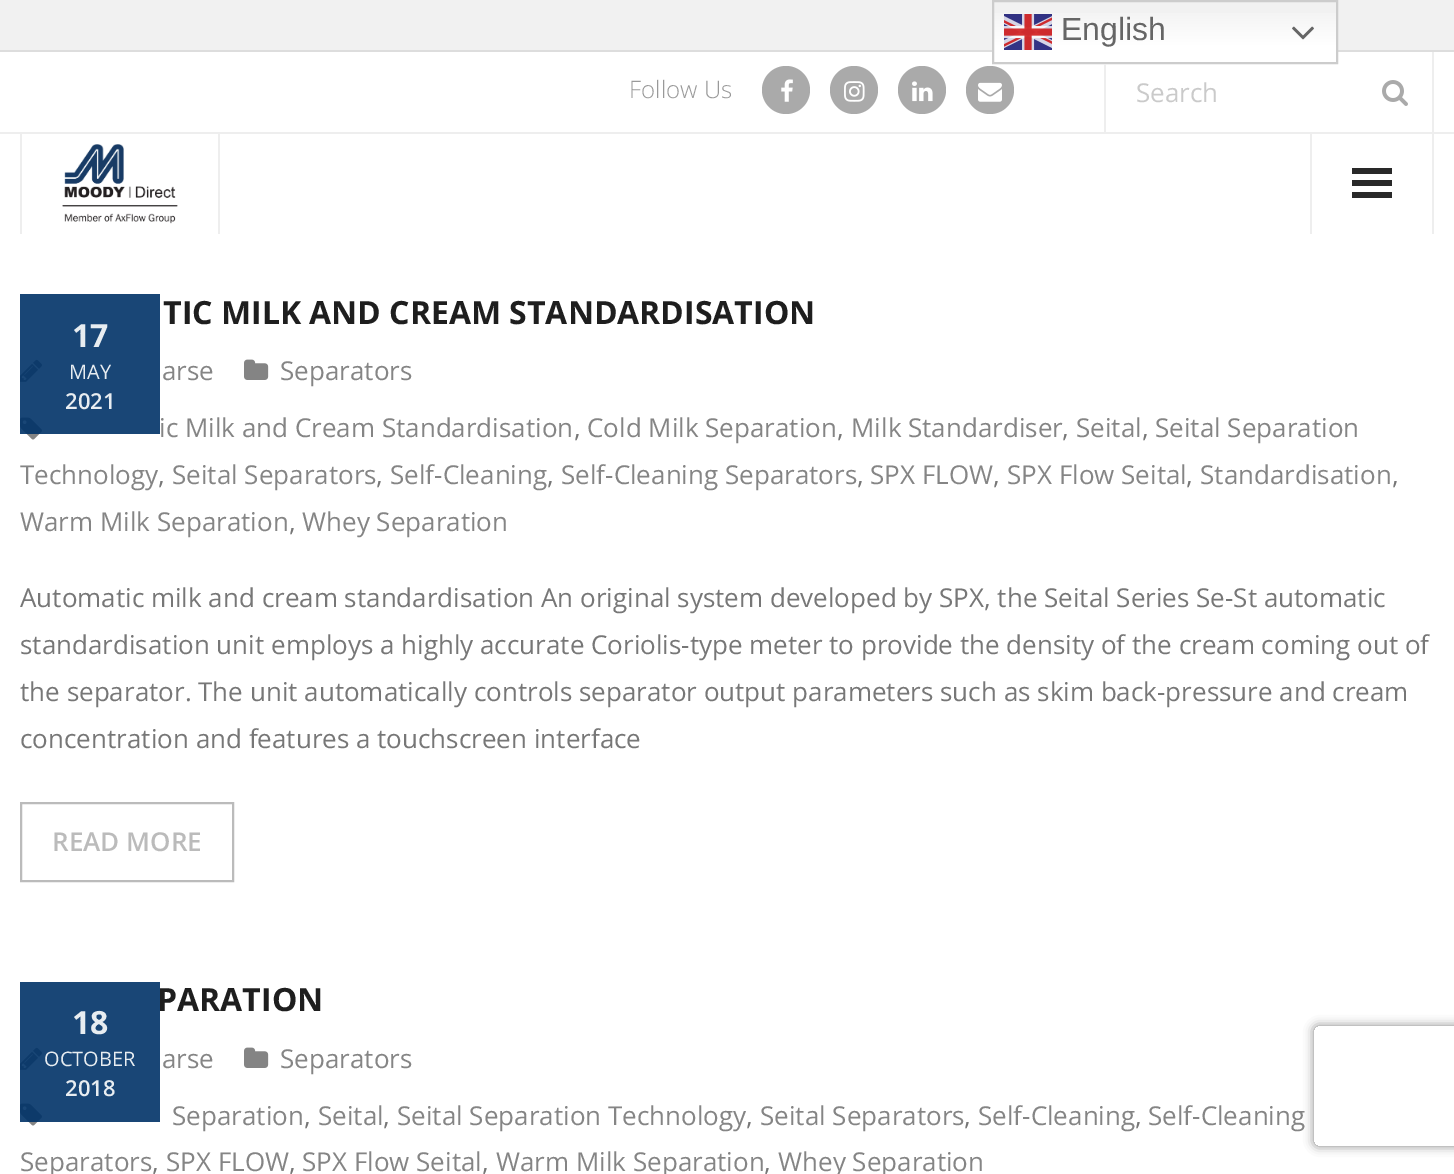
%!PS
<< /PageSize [1454 1174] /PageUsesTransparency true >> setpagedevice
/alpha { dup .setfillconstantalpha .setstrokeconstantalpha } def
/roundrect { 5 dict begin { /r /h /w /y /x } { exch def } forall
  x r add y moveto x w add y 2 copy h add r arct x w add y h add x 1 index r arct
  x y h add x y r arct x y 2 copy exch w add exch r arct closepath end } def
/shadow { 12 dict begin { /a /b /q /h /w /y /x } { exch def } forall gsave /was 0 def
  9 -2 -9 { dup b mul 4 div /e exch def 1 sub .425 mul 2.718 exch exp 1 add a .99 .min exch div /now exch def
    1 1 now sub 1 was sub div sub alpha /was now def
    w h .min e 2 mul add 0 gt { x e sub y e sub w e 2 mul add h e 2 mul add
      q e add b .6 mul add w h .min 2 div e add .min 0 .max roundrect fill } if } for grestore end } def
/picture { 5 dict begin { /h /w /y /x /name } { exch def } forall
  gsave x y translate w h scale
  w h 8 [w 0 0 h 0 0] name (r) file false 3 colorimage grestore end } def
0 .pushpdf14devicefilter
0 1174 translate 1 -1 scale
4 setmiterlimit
0.945 setgray
0 0 1454 1174 rectfill
0.867 setgray
0 50 1454 2 rectfill
gsave newpath 994 13 moveto 1336 13 lineto 1336 52 lineto 994 52 lineto closepath clip newpath
<< /ShadingType 2 /ColorSpace /DeviceRGB /Coords [1165 0 1165 64] /Extend [true true] /Function << /FunctionType 3 /Domain [0 1] /Functions [<< /FunctionType 2 /Domain [0 1] /C0 [0.937 0.937 0.937] /C1 [1 1 1] /N 1 >> << /FunctionType 2 /Domain [0 1] /C0 [1 1 1] /C1 [1 1 1] /N 1 >>] /Bounds [0.7] /Encode [0 1 0 1] >> >> shfill grestore
1 setgray
0 52 1454 1122 rectfill
0.8 setgray
2 setlinewidth
993 1 344 62 rectstroke
(img1.rgb) 1004 14 48 36 picture
/LiberationSans-Regular [32 0 0 -32 0 0] selectfont
0.4 setgray
1061 40 moveto (English) show
(img2.rgb) 1292 26 22 14 picture
0.933 setgray
0 132 1454 2 rectfill
/OpenSans-Light [24 0 0 -24 0 0] selectfont
0.6 setgray
629 98 moveto (Follow Us) show
0.667 setgray
newpath 786 90 24 0 360 arc closepath fill
(img3.rgb) 781 79 12 23 picture
newpath 854 90 24 0 360 arc closepath fill
(img4.rgb) 844 81 21 21 picture
newpath 922 90 24 0 360 arc closepath fill
(img5.rgb) 912 81 21 21 picture
newpath 990 90 24 0 360 arc closepath fill
(img6.rgb) 978 82 24 20 picture
0.933 setgray
1432 52 2 80 rectfill
1104 64 2 68 rectfill
/OpenSans-Regular [26 0 0 -26 0 0] selectfont
0.792 setgray
1136 102 moveto (Search) show
(img7.rgb) 1382 80 26 26 picture
0.933 setgray
218 134 2 100 rectfill
20 134 2 100 rectfill
(img8.rgb) 62 144 116 80 picture
1432 134 2 100 rectfill
1310 134 2 100 rectfill
0.161 setgray
1352 168 40 6 rectfill
1352 180 40 6 rectfill
1352 192 40 6 rectfill
/OpenSans-Bold [32 0 0 -32 0 0] selectfont
0.118 setgray
163 324 moveto (TIC MILK AND CREAM STANDARDISATION) show
(img9.rgb) 20 359 22 23 picture
(img11.rgb) 20 417 22 23 picture
0.9 alpha
0 0.196 0.404 setrgbcolor
20 294 140 140 rectfill
1 alpha
0.91 0.929 0.945 setrgbcolor
72 347 moveto (17) show
/OpenSans-Regular [20 0 0 -20 0 0] selectfont
69 379 moveto (MAY) show
/OpenSans-SemiBold [22 0 0 -22 0 0] selectfont
65 409 moveto (2021) show
/OpenSans-Regular [26 0 0 -26 0 0] selectfont
0.522 setgray
162 380 moveto (arse) show
(img10.rgb) 244 359 25 21 picture
280 380 moveto (Separators) show
159 437 moveto (ic Milk and Cream Standardisation) show
0.467 setgray
574 437 moveto (,) show
0.522 setgray
587 437 moveto (Cold Milk Separation) show
0.467 setgray
837 437 moveto (,) show
0.522 setgray
851 437 moveto (Milk Standardiser) show
0.467 setgray
1062 437 moveto (,) show
0.522 setgray
1076 437 moveto (Seital) show
0.467 setgray
1142 437 moveto (,) show
0.522 setgray
1155 437 moveto (Seital Separation) show
20 484 moveto (Technology) show
0.467 setgray
158 484 moveto (,) show
0.522 setgray
172 484 moveto (Seital Separators) show
0.467 setgray
376 484 moveto (,) show
0.522 setgray
390 484 moveto (Self-Cleaning) show
0.467 setgray
547 484 moveto (,) show
0.522 setgray
561 484 moveto (Self-Cleaning Separators) show
0.467 setgray
857 484 moveto (,) show
0.522 setgray
870 484 moveto (SPX FLOW) show
0.467 setgray
993 484 moveto (,) show
0.522 setgray
1007 484 moveto (SPX Flow Seital) show
0.467 setgray
1186 484 moveto (,) show
0.522 setgray
1200 484 moveto (Standardisation) show
0.467 setgray
1392 484 moveto (,) show
0.522 setgray
20 531 moveto (Warm Milk Separation) show
0.467 setgray
289 531 moveto (,) show
0.522 setgray
302 531 moveto (Whey Separation) show
0.467 setgray
20 607 moveto (Automatic milk and cream standardisation An original system developed by SPX, the Seital Series Se-St automatic) show
20 654 moveto (standardisation unit employs a highly accurate Coriolis-type meter to provide the density of the cream coming out of) show
20 701 moveto (the separator. The unit automatically controls separator output parameters such as skim back-pressure and cream) show
20 748 moveto (concentration and features a touchscreen interface) show
0.733 setgray
21 803 212 78 rectstroke
/OpenSans-SemiBold [26 0 0 -26 0 0] selectfont
52 851 moveto (READ MORE) show
/OpenSans-Bold [32 0 0 -32 0 0] selectfont
0.118 setgray
157 1011 moveto (PARATION) show
(img9.rgb) 20 1047 22 23 picture
(img11.rgb) 20 1103 22 23 picture
0.9 alpha
0 0.196 0.404 setrgbcolor
20 982 140 140 rectfill
1 alpha
0.91 0.929 0.945 setrgbcolor
72 1034 moveto (18) show
/OpenSans-Regular [20 0 0 -20 0 0] selectfont
44 1066 moveto (OCTOBER) show
/OpenSans-SemiBold [22 0 0 -22 0 0] selectfont
65 1096 moveto (2018) show
/OpenSans-Regular [26 0 0 -26 0 0] selectfont
0.522 setgray
162 1068 moveto (arse) show
(img10.rgb) 244 1047 25 21 picture
280 1068 moveto (Separators) show
172 1125 moveto (Separation) show
0.467 setgray
304 1125 moveto (,) show
0.522 setgray
318 1125 moveto (Seital) show
0.467 setgray
383 1125 moveto (,) show
0.522 setgray
397 1125 moveto (Seital Separation Technology) show
0.467 setgray
746 1125 moveto (,) show
0.522 setgray
760 1125 moveto (Seital Separators) show
0.467 setgray
964 1125 moveto (,) show
0.522 setgray
978 1125 moveto (Self-Cleaning) show
0.467 setgray
1135 1125 moveto (,) show
0.522 setgray
1148 1125 moveto (Self-Cleaning) show
20 1171 moveto (Separators) show
0.467 setgray
152 1171 moveto (,) show
0.522 setgray
166 1171 moveto (SPX FLOW) show
0.467 setgray
289 1171 moveto (,) show
0.522 setgray
302 1171 moveto (SPX Flow Seital) show
0.467 setgray
482 1171 moveto (,) show
0.522 setgray
496 1171 moveto (Warm Milk Separation) show
0.467 setgray
764 1171 moveto (,) show
0.522 setgray
778 1171 moveto (Whey Separation) show
gsave
newpath 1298 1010 moveto 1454 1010 lineto 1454 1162 lineto 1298 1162 lineto closepath 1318 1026 moveto 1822 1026 lineto 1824 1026 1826 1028 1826 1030 curveto 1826 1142 lineto 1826 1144 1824 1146 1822 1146 curveto 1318 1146 lineto 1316 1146 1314 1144 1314 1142 curveto 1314 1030 lineto 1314 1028 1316 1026 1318 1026 curveto closepath eoclip newpath
0.502 setgray
1314 1026 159 120 4 5 1 shadow
grestore
.poppdf14devicefilter showpage
